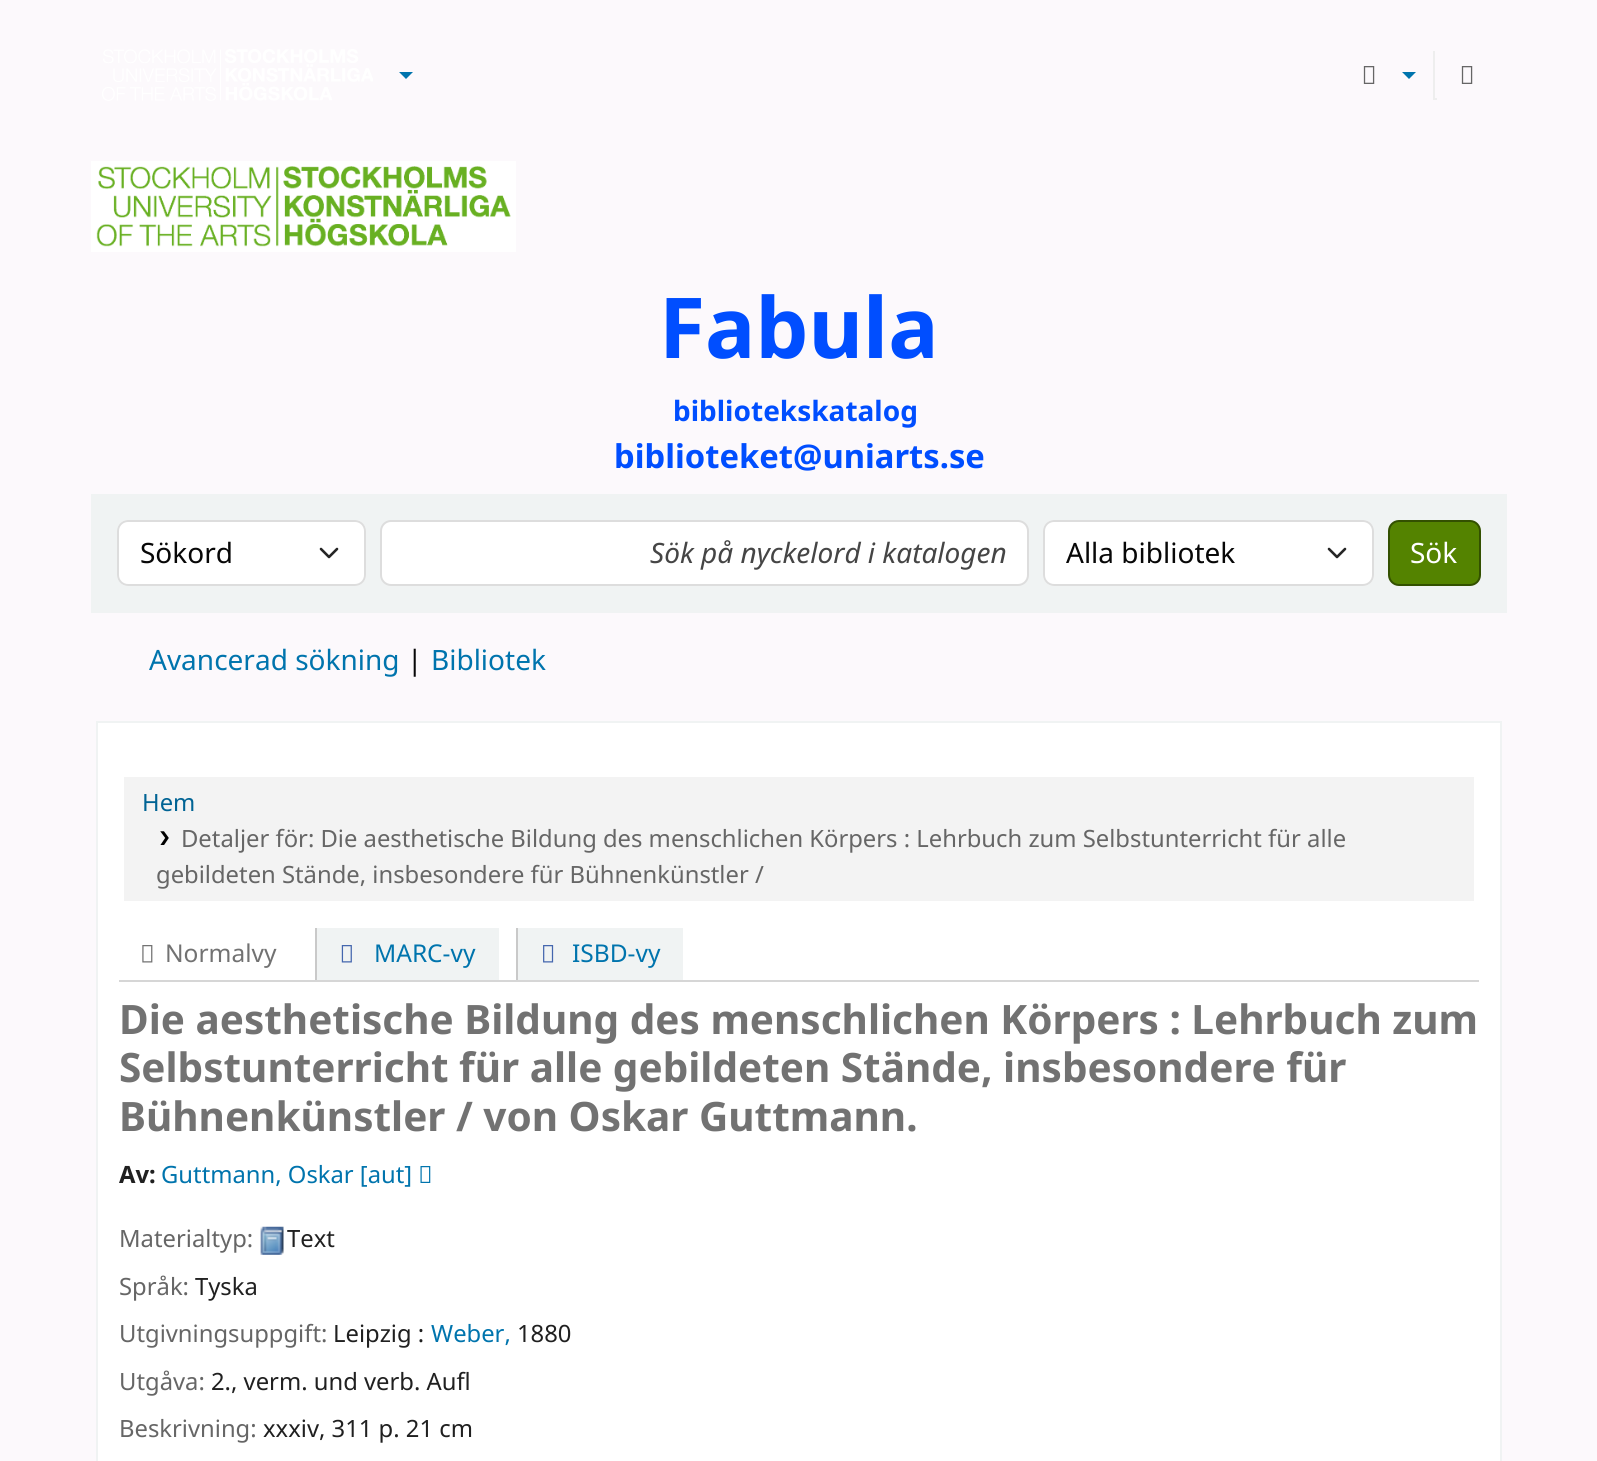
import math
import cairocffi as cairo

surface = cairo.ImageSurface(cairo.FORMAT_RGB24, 1597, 1461)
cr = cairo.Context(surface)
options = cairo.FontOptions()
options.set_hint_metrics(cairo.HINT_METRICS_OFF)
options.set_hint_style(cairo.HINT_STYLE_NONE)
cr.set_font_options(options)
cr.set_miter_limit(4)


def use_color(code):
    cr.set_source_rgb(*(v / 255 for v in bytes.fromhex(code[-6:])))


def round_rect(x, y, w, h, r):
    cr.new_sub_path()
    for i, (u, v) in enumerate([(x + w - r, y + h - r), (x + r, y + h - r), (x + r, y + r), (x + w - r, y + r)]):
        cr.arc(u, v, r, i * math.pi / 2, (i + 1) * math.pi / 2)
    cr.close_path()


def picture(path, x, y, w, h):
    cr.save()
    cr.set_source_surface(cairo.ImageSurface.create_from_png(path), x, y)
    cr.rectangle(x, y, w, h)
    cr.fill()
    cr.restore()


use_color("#fcf9fc")
cr.paint()
picture("img1.png", 102, 49, 271, 52)
use_color("#0074ad")
cr.new_path()
cr.move_to(399, 72)
cr.line_to(413, 72)
cr.line_to(406, 79)
cr.close_path()
cr.fill()
picture("img2.png", 1363, 66, 12, 18)
cr.new_path()
cr.move_to(1402, 72)
cr.line_to(1416, 72)
cr.line_to(1409, 79)
cr.close_path()
cr.fill()
use_color("#eeeeee")
cr.rectangle(1433, 98, 4, 2)
cr.fill()
cr.rectangle(1433, 51, 2, 49)
cr.fill()
picture("img2.png", 1461, 66, 12, 18)
picture("img3.png", 91, 161, 425, 91)
cr.select_font_face("Noto Sans", cairo.FONT_SLANT_NORMAL, cairo.FONT_WEIGHT_BOLD)
cr.set_font_size(84)
use_color("#004eff")
cr.move_to(659, 358)
cr.show_text("Fabula")
cr.set_font_size(28)
cr.move_to(673, 421)
cr.show_text("bibliotekskatalog")
cr.set_font_size(32.75)
cr.move_to(614, 468)
cr.show_text("biblioteket@uniarts.se")
use_color("#f0f3f3")
cr.rectangle(91, 494, 1416, 119)
cr.fill()
use_color("#ffffff")
round_rect(117, 520, 249, 66, 11)
cr.fill()
cr.new_path()
cr.move_to(321, 549)
cr.line_to(329, 557)
cr.line_to(337, 549)
use_color("#252525")
cr.set_line_width(2.6)
cr.set_line_cap(cairo.LINE_CAP_ROUND)
cr.set_line_join(cairo.LINE_JOIN_ROUND)
cr.stroke()
round_rect(118, 521, 247, 64, 10)
use_color("#dddddd")
cr.set_line_width(2)
cr.set_line_cap(cairo.LINE_CAP_BUTT)
cr.set_line_join(cairo.LINE_JOIN_MITER)
cr.stroke()
cr.select_font_face("Noto Sans")
cr.set_font_size(28)
use_color("#070707")
cr.move_to(140, 563)
cr.show_text("Sökord")
use_color("#ffffff")
round_rect(381, 521, 647, 64, 10)
cr.fill_preserve()
use_color("#dddddd")
cr.stroke()
cr.select_font_face("Noto Sans", cairo.FONT_SLANT_ITALIC)
use_color("#454545")
cr.move_to(650, 563)
cr.show_text("Sök på nyckelord i katalogen")
use_color("#ffffff")
round_rect(1043, 520, 331, 66, 11)
cr.fill()
cr.new_path()
cr.move_to(1329, 549)
cr.line_to(1337, 557)
cr.line_to(1345, 549)
use_color("#252525")
cr.set_line_width(2.6)
cr.set_line_cap(cairo.LINE_CAP_ROUND)
cr.set_line_join(cairo.LINE_JOIN_ROUND)
cr.stroke()
round_rect(1044, 521, 329, 64, 10)
use_color("#dddddd")
cr.set_line_width(2)
cr.set_line_cap(cairo.LINE_CAP_BUTT)
cr.set_line_join(cairo.LINE_JOIN_MITER)
cr.stroke()
cr.select_font_face("Noto Sans")
use_color("#070707")
cr.move_to(1066, 563)
cr.show_text("Alla bibliotek")
use_color("#548300")
round_rect(1389, 521, 91, 64, 10)
cr.fill_preserve()
use_color("#335000")
cr.stroke()
use_color("#ffffff")
cr.move_to(1410, 563)
cr.show_text("Sök")
use_color("#0074ad")
cr.move_to(149, 670)
cr.show_text("Avancerad sökning")
use_color("#070707")
cr.move_to(407, 670)
cr.show_text("|")
use_color("#0074ad")
cr.move_to(431, 670)
cr.show_text("Bibliotek")
use_color("#ffffff")
cr.rectangle(97, 722, 1404, 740)
cr.fill_preserve()
use_color("#f0f3f3")
cr.stroke()
use_color("#f3f3f3")
cr.rectangle(124, 777, 1350, 124)
cr.fill()
cr.set_font_size(23.8)
use_color("#006394")
cr.move_to(142, 811)
cr.show_text("Hem")
picture("img4.png", 160, 831, 9, 14)
use_color("#666666")
cr.move_to(181, 847)
cr.show_text("Detaljer för: Die aesthetische Bildung des menschlichen Körpers : Lehrbuch zum Selbstunterricht für alle")
cr.move_to(156, 883)
cr.show_text("gebildeten Stände, insbesondere für Bühnenkünstler /")
use_color("#d6d6d6")
cr.rectangle(119, 980, 1360, 2)
cr.fill()
picture("img5.png", 142, 945, 11, 18)
cr.set_font_size(24.5)
use_color("#727272")
cr.move_to(165, 962)
cr.show_text("Normalvy")
use_color("#f0f3f3")
cr.rectangle(317, 928, 182, 52)
cr.fill()
use_color("#c9c9c9")
cr.rectangle(315, 928, 2, 52)
cr.fill()
picture("img6.png", 341, 945, 11, 18)
use_color("#0074ad")
cr.move_to(374, 962)
cr.show_text("MARC-vy")
use_color("#f0f3f3")
cr.rectangle(518, 928, 165, 52)
cr.fill()
use_color("#c9c9c9")
cr.rectangle(516, 928, 2, 52)
cr.fill()
picture("img7.png", 543, 945, 11, 18)
use_color("#0074ad")
cr.move_to(572, 962)
cr.show_text("ISBD-vy")
cr.select_font_face("Noto Sans", cairo.FONT_SLANT_NORMAL, cairo.FONT_WEIGHT_BOLD)
cr.set_font_size(40.5)
use_color("#727272")
cr.move_to(119, 1034)
cr.show_text("Die aesthetische Bildung des menschlichen Körpers : Lehrbuch zum")
cr.move_to(119, 1082)
cr.show_text("Selbstunterricht für alle gebildeten Stände, insbesondere für")
cr.move_to(119, 1131)
cr.show_text("Bühnenkünstler / von Oskar Guttmann.")
cr.set_font_size(23.8)
use_color("#202020")
cr.move_to(119, 1183)
cr.show_text("Av:")
cr.select_font_face("Noto Sans")
use_color("#0074ad")
cr.move_to(161, 1183)
cr.show_text("Guttmann, Oskar [aut]")
picture("img8.png", 420, 1166, 11, 17)
use_color("#666666")
cr.move_to(119, 1247)
cr.show_text("Materialtyp:")
picture("img9.png", 260, 1226, 24, 29)
use_color("#202020")
cr.move_to(287, 1247)
cr.show_text("Text")
use_color("#666666")
cr.move_to(119, 1295)
cr.show_text("Språk:")
use_color("#202020")
cr.move_to(195, 1295)
cr.show_text("Tyska")
use_color("#666666")
cr.move_to(119, 1342)
cr.show_text("Utgivningsuppgift:")
use_color("#202020")
cr.move_to(333, 1342)
cr.show_text("Leipzig :")
use_color("#0074ad")
cr.move_to(431, 1342)
cr.show_text("Weber,")
use_color("#202020")
cr.move_to(517, 1342)
cr.show_text("1880")
use_color("#666666")
cr.move_to(119, 1390)
cr.show_text("Utgåva:")
use_color("#202020")
cr.move_to(211, 1390)
cr.show_text("2., verm. und verb. Aufl")
use_color("#666666")
cr.move_to(119, 1437)
cr.show_text("Beskrivning:")
use_color("#202020")
cr.move_to(263, 1437)
cr.show_text("xxxiv, 311 p. 21 cm")
surface.write_to_png("result.png")
